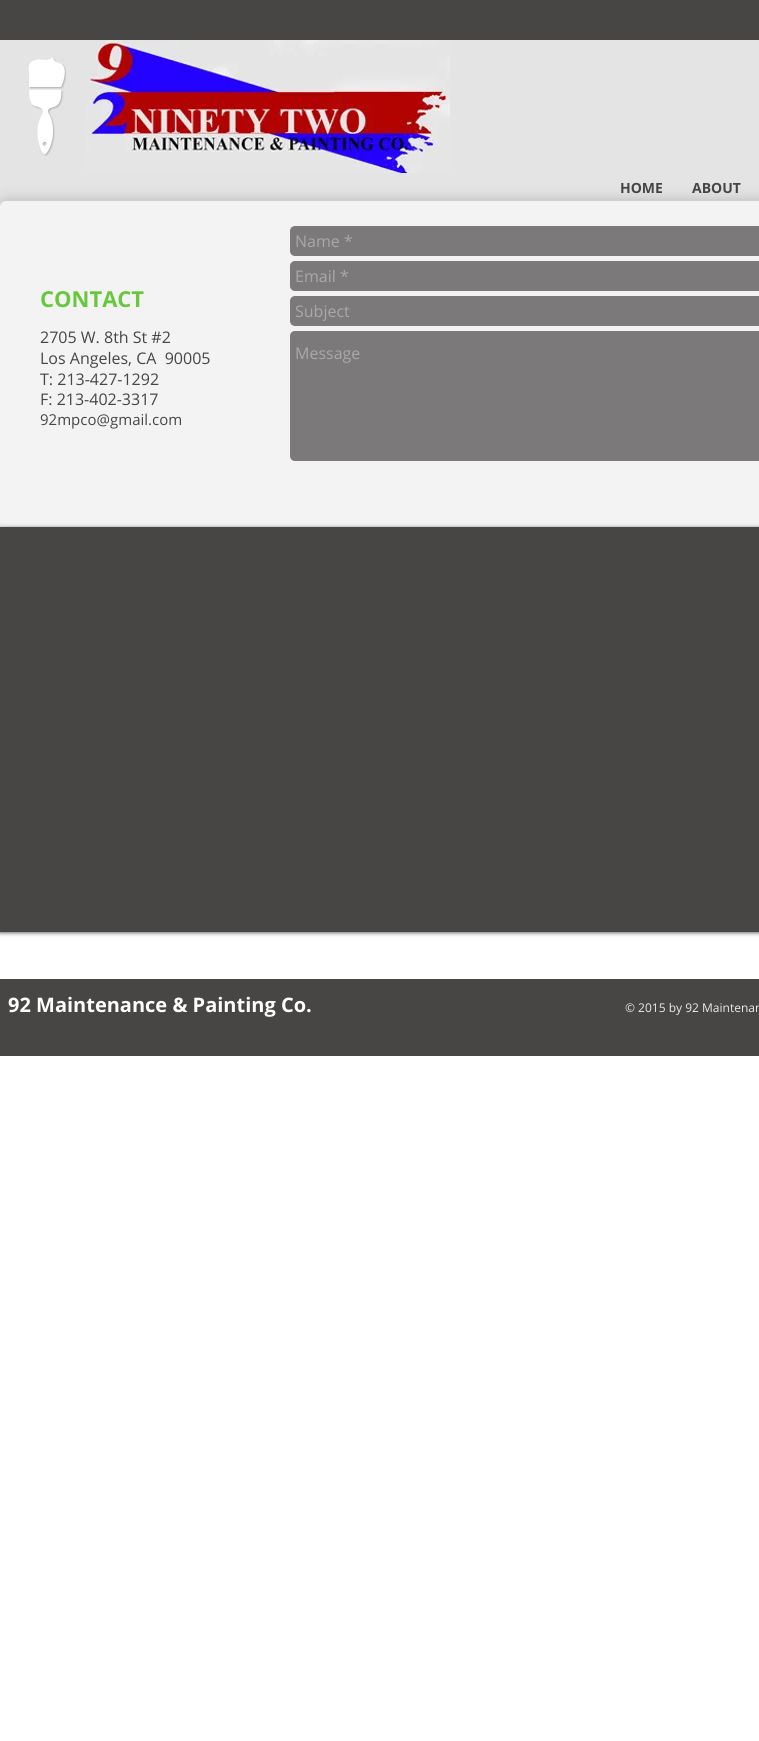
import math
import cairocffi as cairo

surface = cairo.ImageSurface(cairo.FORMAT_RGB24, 759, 1741)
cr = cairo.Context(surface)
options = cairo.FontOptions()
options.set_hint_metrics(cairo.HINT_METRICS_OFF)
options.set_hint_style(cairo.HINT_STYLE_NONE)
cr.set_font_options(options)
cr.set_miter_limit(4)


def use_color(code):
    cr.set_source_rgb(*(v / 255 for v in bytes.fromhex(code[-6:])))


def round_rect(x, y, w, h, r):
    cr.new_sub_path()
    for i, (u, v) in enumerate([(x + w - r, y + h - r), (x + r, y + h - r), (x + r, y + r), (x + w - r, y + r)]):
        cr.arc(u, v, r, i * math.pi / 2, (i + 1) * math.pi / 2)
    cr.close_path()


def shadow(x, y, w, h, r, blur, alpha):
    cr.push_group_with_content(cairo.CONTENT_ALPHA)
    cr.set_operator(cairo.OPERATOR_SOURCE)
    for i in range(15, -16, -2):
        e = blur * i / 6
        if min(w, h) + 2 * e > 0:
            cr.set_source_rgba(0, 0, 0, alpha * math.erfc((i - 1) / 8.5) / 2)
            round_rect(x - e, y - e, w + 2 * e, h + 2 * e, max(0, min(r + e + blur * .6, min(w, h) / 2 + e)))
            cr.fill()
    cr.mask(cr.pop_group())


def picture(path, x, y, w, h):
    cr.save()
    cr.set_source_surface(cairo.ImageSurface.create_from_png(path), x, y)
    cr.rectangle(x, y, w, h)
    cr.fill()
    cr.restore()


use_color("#ffffff")
cr.paint()
use_color("#e4e4e4")
cr.rectangle(0, 40, 759, 167)
cr.fill()
use_color("#484545")
cr.rectangle(0, 0, 759, 40)
cr.fill()
picture("img1.png", 28, 57, 38, 99)
picture("img2.png", 86, 40, 364, 133)
cr.select_font_face("Open Sans", cairo.FONT_SLANT_NORMAL, cairo.FONT_WEIGHT_BOLD)
cr.set_font_size(14)
cr.move_to(620, 193)
cr.show_text("HOME")
cr.move_to(692, 193)
cr.show_text("ABOUT")
use_color("#000000")
shadow(0, 200, 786, 325, 6, 7, 0.18)
use_color("#f3f3f3")
round_rect(0, 201, 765, 325, 6)
cr.fill()
cr.set_font_size(22)
use_color("#67c83d")
cr.move_to(40, 307)
cr.show_text("CONTACT")
use_color("#7b7979")
round_rect(290, 226, 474, 30, 5)
cr.fill()
cr.select_font_face("Open Sans")
cr.set_font_size(16)
use_color("#a9a9a9")
cr.move_to(295, 247)
cr.show_text("Name *")
use_color("#7b7979")
round_rect(290, 261, 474, 30, 5)
cr.fill()
use_color("#a9a9a9")
cr.move_to(295, 282)
cr.show_text("Email *")
use_color("#7b7979")
round_rect(290, 296, 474, 30, 5)
cr.fill()
use_color("#a9a9a9")
cr.move_to(295, 317)
cr.show_text("Subject")
use_color("#7b7979")
round_rect(290, 331, 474, 130, 5)
cr.fill()
use_color("#a9a9a9")
cr.move_to(295, 359)
cr.show_text("Message")
use_color("#484545")
cr.move_to(40, 343)
cr.show_text("2705 W. 8th St #2")
cr.move_to(40, 364)
cr.show_text("Los Angeles, CA  90005")
cr.move_to(40, 385)
cr.show_text("T: 213-427-1292")
cr.move_to(40, 405)
cr.show_text("F: 213-402-3317")
cr.set_font_size(15)
cr.move_to(40, 425)
cr.show_text("92mpco@gmail.com")
use_color("#000000")
shadow(0, 528, 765, 405, 0, 2, 0.6)
use_color("#484545")
cr.rectangle(0, 527, 759, 405)
cr.fill()
cr.rectangle(0, 979, 759, 77)
cr.fill()
cr.select_font_face("Open Sans", cairo.FONT_SLANT_NORMAL, cairo.FONT_WEIGHT_BOLD)
cr.set_font_size(20)
use_color("#ffffff")
cr.move_to(8, 1012)
cr.show_text("92 Maintenance & Painting Co.")
cr.select_font_face("Open Sans")
cr.set_font_size(12)
use_color("#ebebeb")
cr.move_to(625, 1012)
cr.show_text("© 2015 by 92 Maintenan")
surface.write_to_png("result.png")
